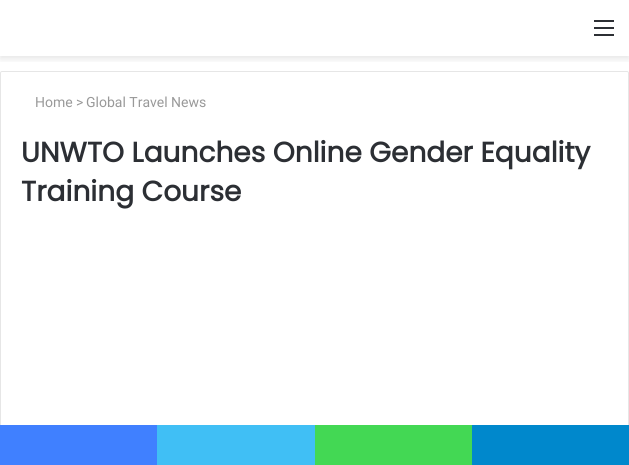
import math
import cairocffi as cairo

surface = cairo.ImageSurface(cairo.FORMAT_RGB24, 629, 465)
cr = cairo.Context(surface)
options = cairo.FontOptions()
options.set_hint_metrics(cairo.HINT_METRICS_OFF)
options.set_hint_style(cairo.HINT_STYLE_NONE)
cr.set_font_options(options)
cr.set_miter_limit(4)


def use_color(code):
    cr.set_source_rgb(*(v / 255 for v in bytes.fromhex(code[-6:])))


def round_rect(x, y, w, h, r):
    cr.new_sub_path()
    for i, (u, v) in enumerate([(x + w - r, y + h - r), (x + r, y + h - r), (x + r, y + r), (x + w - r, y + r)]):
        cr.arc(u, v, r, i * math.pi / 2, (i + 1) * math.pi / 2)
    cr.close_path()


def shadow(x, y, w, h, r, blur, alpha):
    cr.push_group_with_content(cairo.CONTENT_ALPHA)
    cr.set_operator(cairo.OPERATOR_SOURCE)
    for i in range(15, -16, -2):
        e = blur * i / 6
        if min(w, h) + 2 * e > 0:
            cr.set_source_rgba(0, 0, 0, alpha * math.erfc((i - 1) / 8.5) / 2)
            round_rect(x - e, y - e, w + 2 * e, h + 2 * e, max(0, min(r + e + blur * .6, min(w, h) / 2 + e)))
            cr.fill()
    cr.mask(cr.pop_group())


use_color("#ffffff")
cr.paint()
cr.save()
cr.rectangle(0, 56, 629, 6)
cr.clip()
use_color("#000000")
shadow(0, 3, 629, 56, 0, 3.5, 0.1)
cr.restore()
use_color("#2c2f34")
cr.rectangle(594, 27, 20, 2)
cr.fill()
cr.rectangle(594, 20, 20, 2)
cr.fill()
cr.rectangle(594, 34, 20, 2)
cr.fill()
round_rect(0.5, 71.5, 628, 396, 1.5)
use_color("#e6e6e6")
cr.set_line_width(1)
cr.stroke()
cr.select_font_face("Roboto")
cr.set_font_size(14)
use_color("#999999")
cr.move_to(35, 107)
cr.show_text("Home")
cr.move_to(76, 107)
cr.show_text(">")
cr.move_to(86, 107)
cr.show_text("Global Travel News")
cr.select_font_face("Poppins", cairo.FONT_SLANT_NORMAL, cairo.FONT_WEIGHT_BOLD)
cr.set_font_size(28)
use_color("#2c2f34")
cr.move_to(21, 162)
cr.show_text("UNWTO Launches Online Gender Equality")
cr.move_to(21, 201)
cr.show_text("Training Course")
use_color("#4080ff")
cr.rectangle(0, 425, 157, 40)
cr.fill()
use_color("#40bff5")
cr.rectangle(157, 425, 158, 40)
cr.fill()
use_color("#43d854")
cr.rectangle(315, 425, 157, 40)
cr.fill()
use_color("#0088cc")
cr.rectangle(472, 425, 157, 40)
cr.fill()
surface.write_to_png("result.png")
